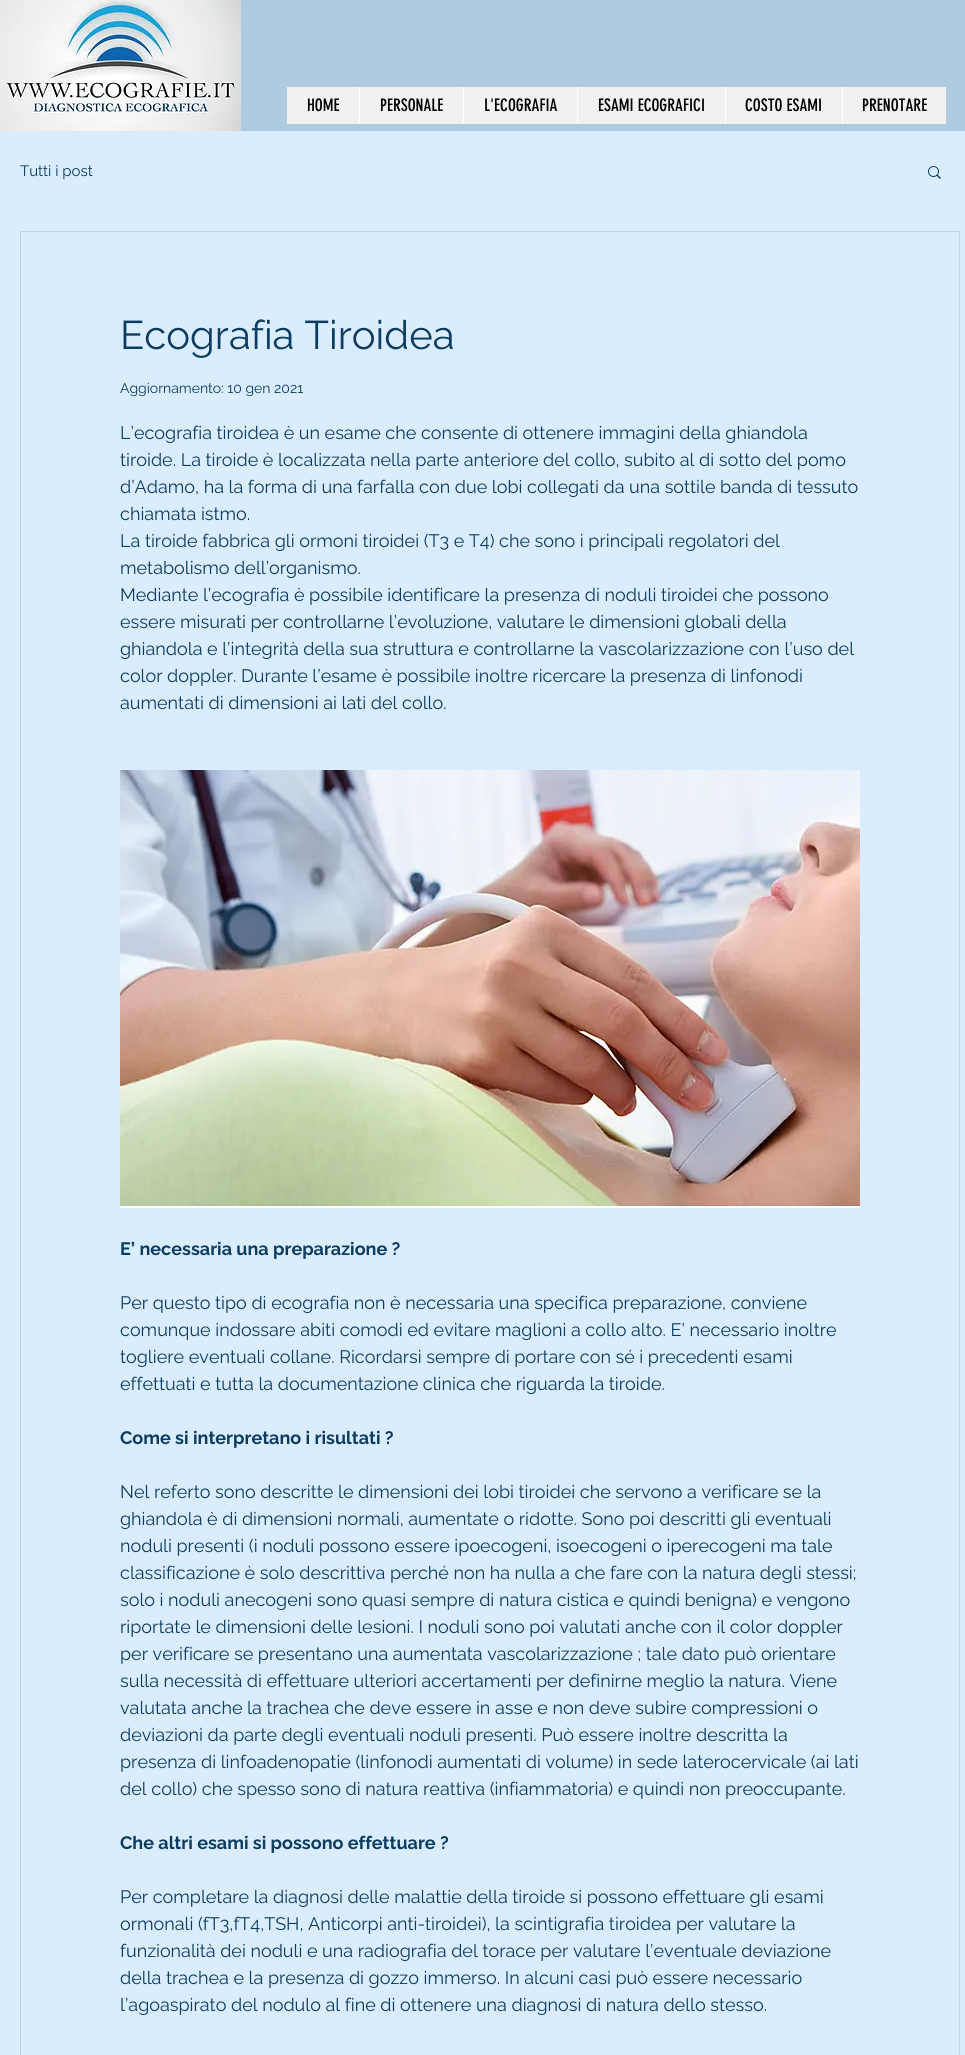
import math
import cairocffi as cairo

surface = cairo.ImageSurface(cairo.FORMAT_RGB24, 965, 2055)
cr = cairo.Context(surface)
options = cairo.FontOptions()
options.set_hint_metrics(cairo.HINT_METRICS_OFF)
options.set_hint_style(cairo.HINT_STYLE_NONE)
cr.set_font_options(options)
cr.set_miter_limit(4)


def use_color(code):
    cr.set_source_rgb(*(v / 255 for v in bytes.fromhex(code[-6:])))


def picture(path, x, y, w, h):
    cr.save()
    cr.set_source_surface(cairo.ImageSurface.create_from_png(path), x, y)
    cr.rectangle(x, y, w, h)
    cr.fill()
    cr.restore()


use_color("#daedff")
cr.paint()
picture("img1.png", 0, 0, 241, 131)
use_color("#afcbe0")
cr.rectangle(241, 0, 724, 131)
cr.fill()
use_color("#f1f1f1")
cr.rectangle(287, 87, 659, 37)
cr.fill()
cr.select_font_face("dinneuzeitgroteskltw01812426")
cr.set_font_size(17)
use_color("#000000")
cr.move_to(307, 111)
cr.show_text("HOME")
use_color("#ffffff")
cr.rectangle(359, 87, 1, 37)
cr.fill()
use_color("#000000")
cr.move_to(380, 111)
cr.show_text("PERSONALE")
use_color("#ffffff")
cr.rectangle(463, 87, 1, 37)
cr.fill()
use_color("#000000")
cr.move_to(484, 111)
cr.show_text("L'ECOGRAFIA")
use_color("#ffffff")
cr.rectangle(577, 87, 1, 37)
cr.fill()
use_color("#000000")
cr.move_to(598, 111)
cr.show_text("ESAMI ECOGRAFICI")
use_color("#ffffff")
cr.rectangle(725, 87, 1, 37)
cr.fill()
use_color("#000000")
cr.move_to(745, 111)
cr.show_text("COSTO ESAMI")
use_color("#ffffff")
cr.rectangle(842, 87, 1, 37)
cr.fill()
use_color("#000000")
cr.move_to(862, 111)
cr.show_text("PRENOTARE")
cr.select_font_face("Raleway")
cr.set_font_size(15)
use_color("#0c3c60")
cr.move_to(20, 176)
cr.show_text("Tutti i post")
picture("img2.png", 928, 166, 13, 13)
cr.rectangle(20.5, 231.5, 939, 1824)
use_color("#bad4e8")
cr.set_line_width(1)
cr.stroke()
cr.set_font_size(40)
use_color("#0c3c60")
cr.move_to(120, 349)
cr.show_text("Ecografia Tiroidea")
cr.set_font_size(14)
cr.move_to(120, 393)
cr.show_text("Aggiornamento: 10 gen 2021")
cr.set_font_size(18)
cr.move_to(120, 439)
cr.show_text("L’ecografia tiroidea è un esame che consente di ottenere immagini della ghiandola")
cr.move_to(120, 466)
cr.show_text("tiroide. La tiroide è localizzata nella parte anteriore del collo, subito al di sotto del pomo")
cr.move_to(120, 493)
cr.show_text("d’Adamo, ha la forma di una farfalla con due lobi collegati da una sottile banda di tessuto")
cr.move_to(120, 520)
cr.show_text("chiamata istmo.")
cr.move_to(120, 547)
cr.show_text("La tiroide fabbrica gli ormoni tiroidei (T3 e T4) che sono i principali regolatori del")
cr.move_to(120, 574)
cr.show_text("metabolismo dell’organismo.")
cr.move_to(120, 601)
cr.show_text("Mediante l’ecografia è possibile identificare la presenza di noduli tiroidei che possono")
cr.move_to(120, 628)
cr.show_text("essere misurati per controllarne l’evoluzione, valutare le dimensioni globali della")
cr.move_to(120, 655)
cr.show_text("ghiandola e l’integrità della sua struttura e controllarne la vascolarizzazione con l’uso del")
cr.move_to(120, 682)
cr.show_text("color doppler. Durante l’esame è possibile inoltre ricercare la presenza di linfonodi")
cr.move_to(120, 709)
cr.show_text("aumentati di dimensioni ai lati del collo.")
picture("img3.png", 120, 770, 740, 438)
cr.select_font_face("Raleway", cairo.FONT_SLANT_NORMAL, cairo.FONT_WEIGHT_BOLD)
cr.move_to(120, 1255)
cr.show_text("E’ necessaria una preparazione ?")
cr.select_font_face("Raleway")
cr.move_to(120, 1309)
cr.show_text("Per questo tipo di ecografia non è necessaria una specifica preparazione, conviene")
cr.move_to(120, 1336)
cr.show_text("comunque indossare abiti comodi ed evitare maglioni a collo alto. E’ necessario inoltre")
cr.move_to(120, 1363)
cr.show_text("togliere eventuali collane. Ricordarsi sempre di portare con sé i precedenti esami")
cr.move_to(120, 1390)
cr.show_text("effettuati e tutta la documentazione clinica che riguarda la tiroide.")
cr.select_font_face("Raleway", cairo.FONT_SLANT_NORMAL, cairo.FONT_WEIGHT_BOLD)
cr.move_to(120, 1444)
cr.show_text("Come si interpretano i risultati ?")
cr.select_font_face("Raleway")
cr.move_to(120, 1498)
cr.show_text("Nel referto sono descritte le dimensioni dei lobi tiroidei che servono a verificare se la")
cr.move_to(120, 1525)
cr.show_text("ghiandola è di dimensioni normali, aumentate o ridotte. Sono poi descritti gli eventuali")
cr.move_to(120, 1552)
cr.show_text("noduli presenti (i noduli possono essere ipoecogeni, isoecogeni o iperecogeni ma tale")
cr.move_to(120, 1579)
cr.show_text("classificazione è solo descrittiva perché non ha nulla a che fare con la natura degli stessi;")
cr.move_to(120, 1606)
cr.show_text("solo i noduli anecogeni sono quasi sempre di natura cistica e quindi benigna) e vengono")
cr.move_to(120, 1633)
cr.show_text("riportate le dimensioni delle lesioni. I noduli sono poi valutati anche con il color doppler")
cr.move_to(120, 1660)
cr.show_text("per verificare se presentano una aumentata vascolarizzazione ; tale dato può orientare")
cr.move_to(120, 1687)
cr.show_text("sulla necessità di effettuare ulteriori accertamenti per definirne meglio la natura. Viene")
cr.move_to(120, 1714)
cr.show_text("valutata anche la trachea che deve essere in asse e non deve subire compressioni o")
cr.move_to(120, 1741)
cr.show_text("deviazioni da parte degli eventuali noduli presenti. Può essere inoltre descritta la")
cr.move_to(120, 1768)
cr.show_text("presenza di linfoadenopatie (linfonodi aumentati di volume) in sede laterocervicale (ai lati")
cr.move_to(120, 1795)
cr.show_text("del collo) che spesso sono di natura reattiva (infiammatoria) e quindi non preoccupante.")
cr.select_font_face("Raleway", cairo.FONT_SLANT_NORMAL, cairo.FONT_WEIGHT_BOLD)
cr.move_to(120, 1849)
cr.show_text("Che altri esami si possono effettuare ?")
cr.select_font_face("Raleway")
cr.move_to(120, 1903)
cr.show_text("Per completare la diagnosi delle malattie della tiroide si possono effettuare gli esami")
cr.move_to(120, 1930)
cr.show_text("ormonali (fT3,fT4,TSH, Anticorpi anti-tiroidei), la scintigrafia tiroidea per valutare la")
cr.move_to(120, 1957)
cr.show_text("funzionalità dei noduli e una radiografia del torace per valutare l’eventuale deviazione")
cr.move_to(120, 1984)
cr.show_text("della trachea e la presenza di gozzo immerso. In alcuni casi può essere necessario")
cr.move_to(120, 2011)
cr.show_text("l’agoaspirato del nodulo al fine di ottenere una diagnosi di natura dello stesso.")
surface.write_to_png("result.png")
